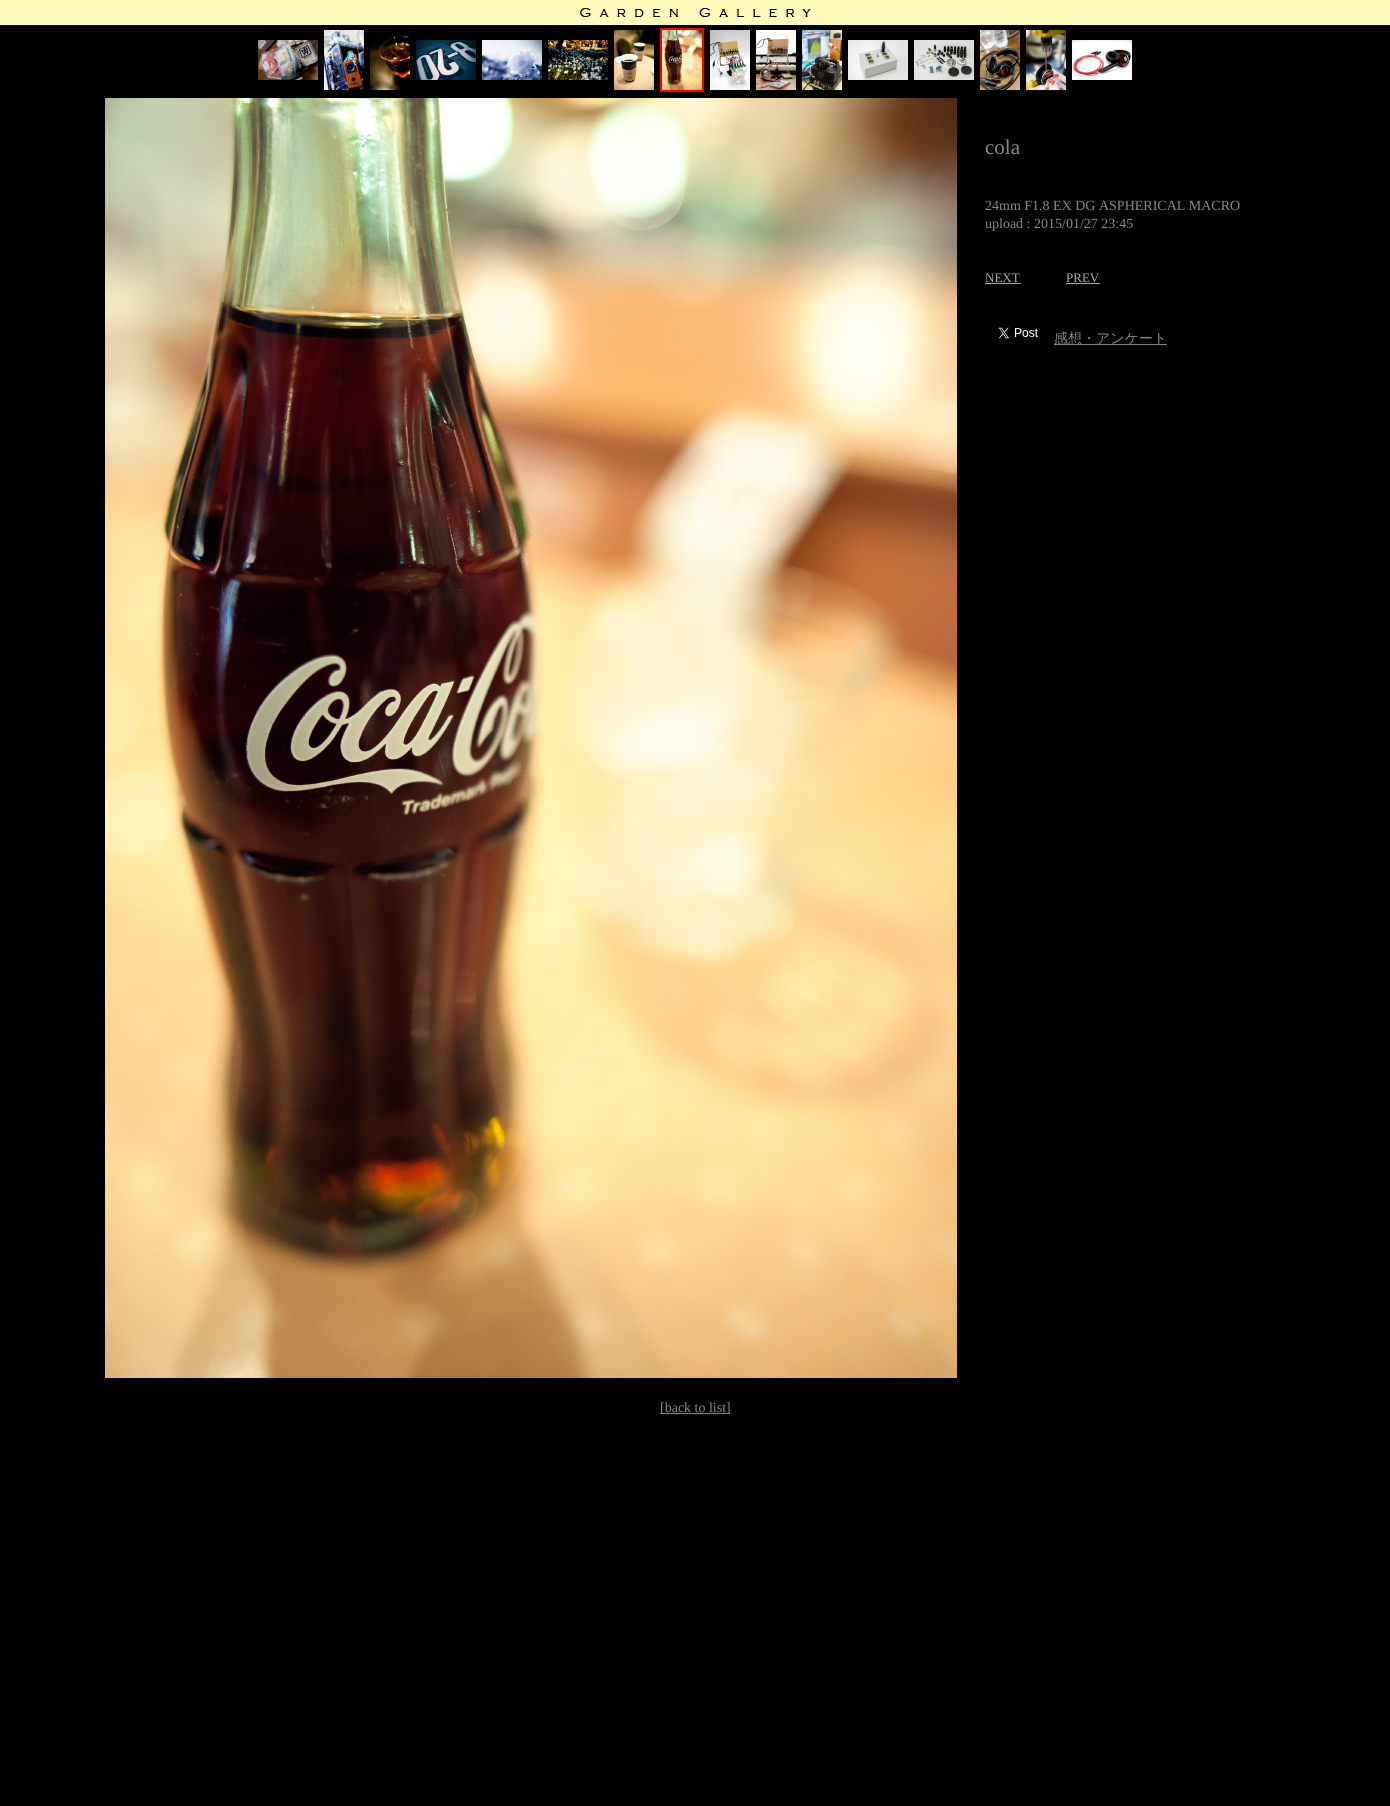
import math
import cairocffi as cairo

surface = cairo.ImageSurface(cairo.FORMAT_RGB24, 1390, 1806)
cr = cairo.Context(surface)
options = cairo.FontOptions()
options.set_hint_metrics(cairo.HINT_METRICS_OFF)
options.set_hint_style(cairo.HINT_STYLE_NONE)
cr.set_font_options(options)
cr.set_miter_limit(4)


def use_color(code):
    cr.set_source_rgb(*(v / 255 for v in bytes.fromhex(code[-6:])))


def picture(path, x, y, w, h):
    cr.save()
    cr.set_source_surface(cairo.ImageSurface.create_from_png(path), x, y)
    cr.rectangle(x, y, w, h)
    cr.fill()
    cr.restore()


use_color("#000000")
cr.paint()
use_color("#fffbbb")
cr.rectangle(0, 0, 1390, 25)
cr.fill()
picture("img1.png", 580, 8, 231, 9)
picture("img2.png", 258, 40, 60, 40)
picture("img3.png", 324, 30, 40, 60)
picture("img4.png", 370, 34, 40, 56)
picture("img5.png", 416, 40, 60, 40)
picture("img6.png", 482, 40, 60, 40)
picture("img7.png", 548, 40, 60, 40)
picture("img8.png", 614, 30, 40, 60)
cr.rectangle(661, 29, 42, 62)
use_color("#ff0000")
cr.stroke()
picture("img9.png", 662, 30, 40, 60)
picture("img10.png", 710, 30, 40, 60)
picture("img11.png", 756, 30, 40, 60)
picture("img12.png", 802, 30, 40, 60)
picture("img13.png", 848, 40, 60, 40)
picture("img14.png", 914, 40, 60, 40)
picture("img15.png", 980, 30, 40, 60)
picture("img16.png", 1026, 30, 40, 60)
picture("img17.png", 1072, 40, 60, 40)
picture("img18.png", 105, 98, 852, 1280)
cr.select_font_face("Liberation Serif")
cr.set_font_size(21)
use_color("#888888")
cr.move_to(985, 154)
cr.show_text("cola")
cr.set_font_size(14)
cr.move_to(985, 210)
cr.show_text("24mm F1.8 EX DG ASPHERICAL MACRO")
cr.move_to(985, 228)
cr.show_text("upload : 2015/01/27 23:45")
cr.set_font_size(13)
use_color("#aaaaaa")
cr.move_to(985, 282)
cr.show_text("NEXT")
cr.rectangle(985, 283, 36, 1)
cr.fill()
cr.move_to(1066, 282)
cr.show_text("PREV")
cr.rectangle(1066, 283, 34, 1)
cr.fill()
picture("img19.png", 998, 327, 40, 12)
use_color("#888888")
cr.rectangle(1054, 344, 113, 1)
cr.fill()
cr.select_font_face("WenQuanYi Zen Hei Medium")
cr.set_font_size(14)
cr.move_to(1054, 343)
cr.show_text("感想・アンケート")
cr.rectangle(660, 1413, 70, 1)
cr.fill()
cr.select_font_face("Liberation Serif")
cr.move_to(660, 1412)
cr.show_text("[back to list]")
surface.write_to_png("result.png")
